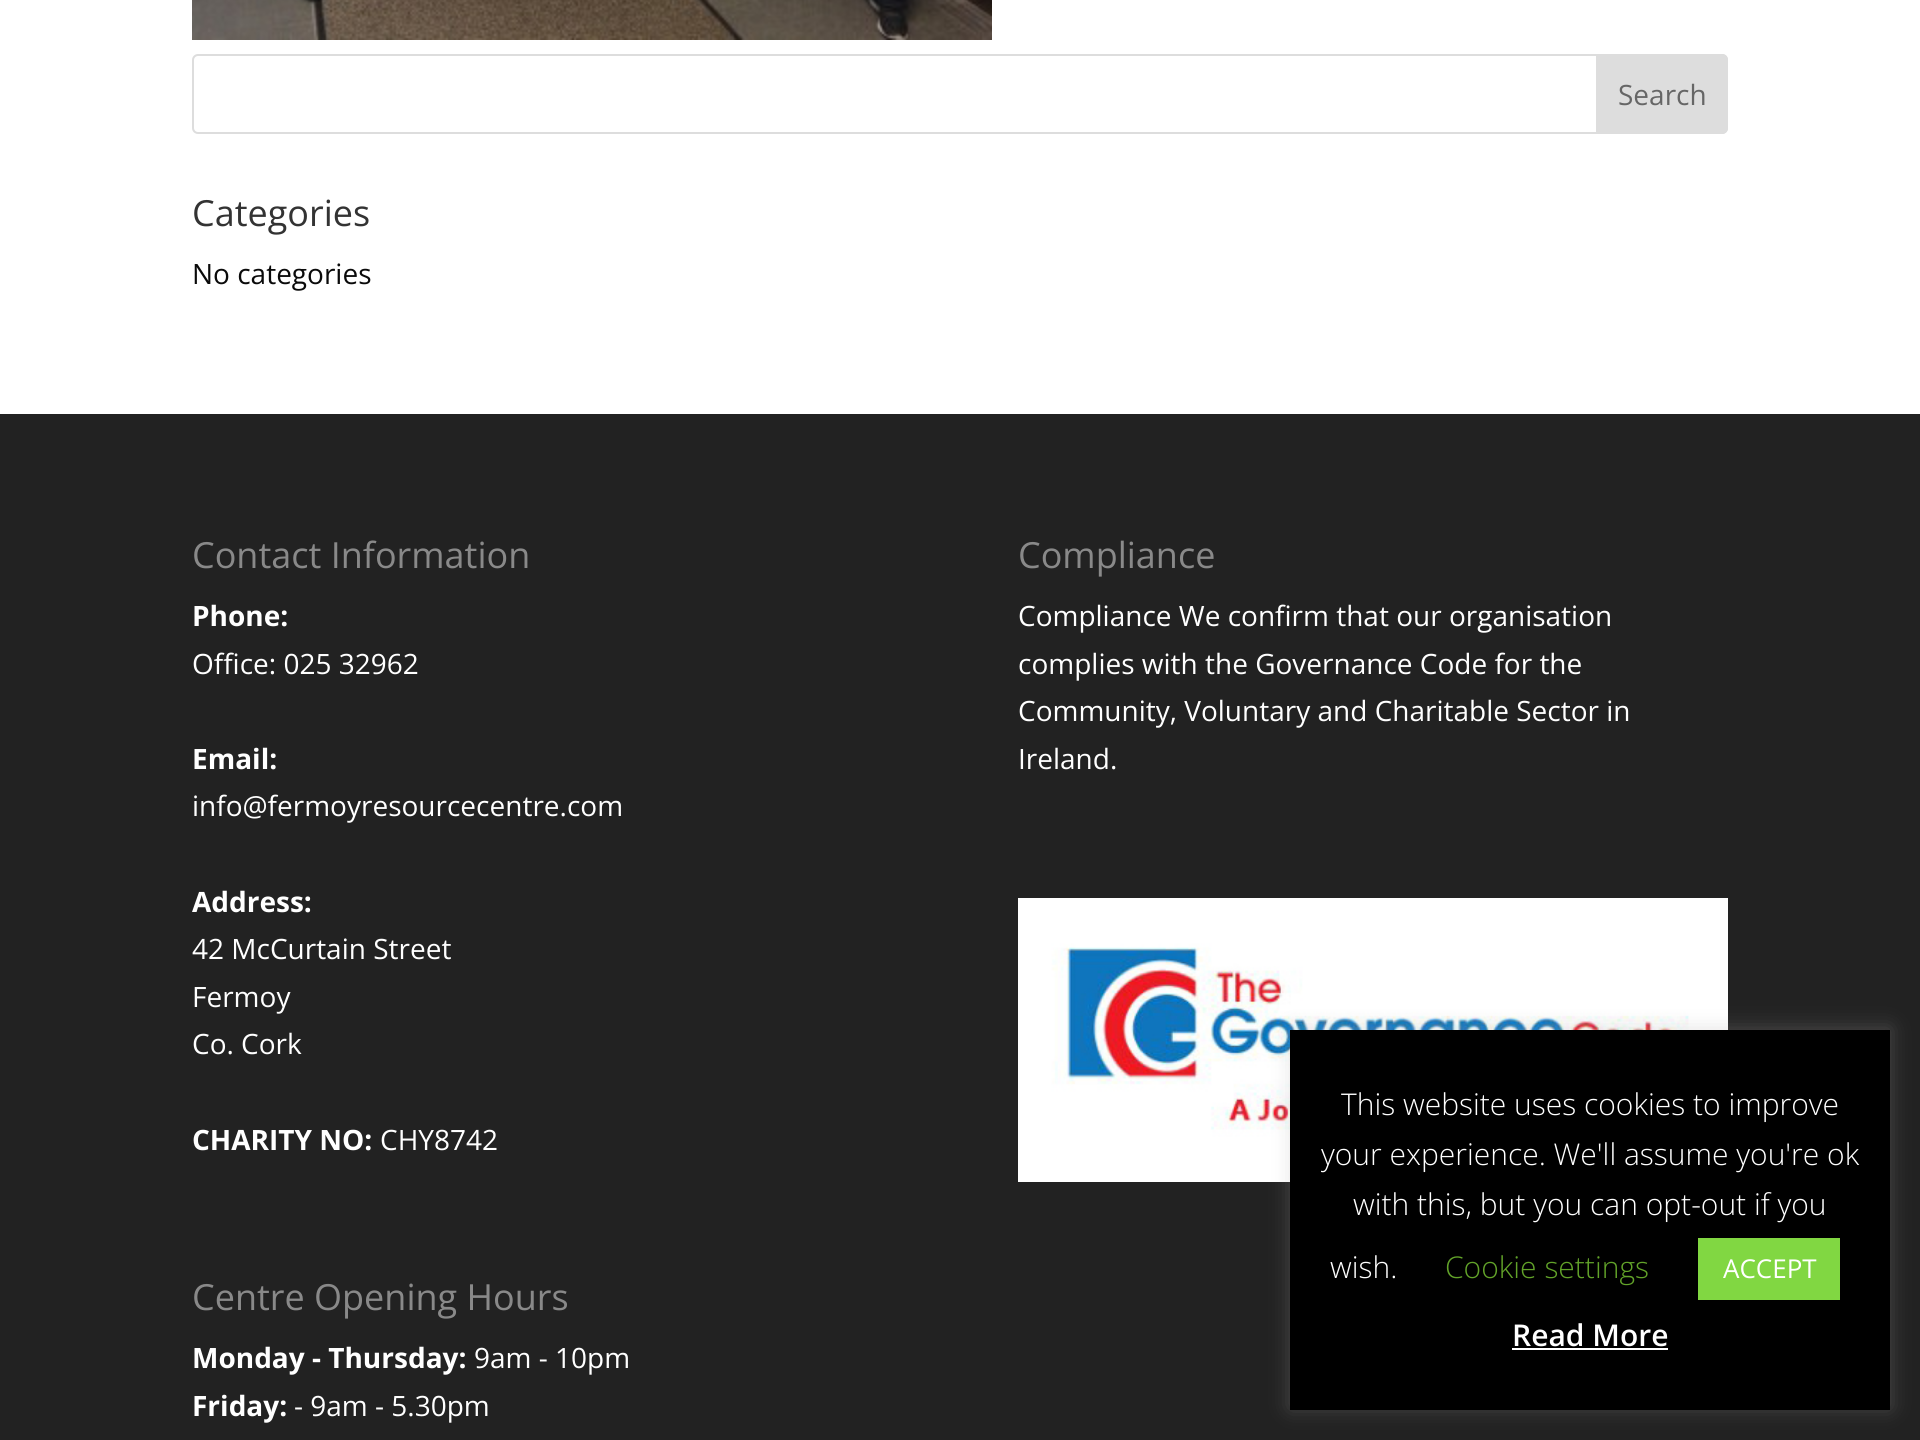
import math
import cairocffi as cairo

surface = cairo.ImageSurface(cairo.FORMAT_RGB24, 1920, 1440)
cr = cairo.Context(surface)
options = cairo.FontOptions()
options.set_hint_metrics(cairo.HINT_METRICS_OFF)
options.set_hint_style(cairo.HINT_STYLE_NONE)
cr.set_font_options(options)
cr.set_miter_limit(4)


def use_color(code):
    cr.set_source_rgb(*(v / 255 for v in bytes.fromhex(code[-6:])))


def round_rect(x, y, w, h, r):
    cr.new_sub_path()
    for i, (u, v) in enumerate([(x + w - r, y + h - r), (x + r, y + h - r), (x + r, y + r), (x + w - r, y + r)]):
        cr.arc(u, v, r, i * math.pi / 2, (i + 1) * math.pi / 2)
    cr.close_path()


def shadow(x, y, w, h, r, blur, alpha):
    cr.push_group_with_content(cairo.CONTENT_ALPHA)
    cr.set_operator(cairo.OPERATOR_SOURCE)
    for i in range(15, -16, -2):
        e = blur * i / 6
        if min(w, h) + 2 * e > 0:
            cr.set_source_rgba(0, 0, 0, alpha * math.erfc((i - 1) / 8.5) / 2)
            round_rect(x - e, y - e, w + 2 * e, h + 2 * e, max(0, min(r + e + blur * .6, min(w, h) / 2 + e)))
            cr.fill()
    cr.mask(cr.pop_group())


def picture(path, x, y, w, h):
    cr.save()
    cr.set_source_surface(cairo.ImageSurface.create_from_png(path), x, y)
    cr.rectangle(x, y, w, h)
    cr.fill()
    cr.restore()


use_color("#ffffff")
cr.paint()
picture("img1.png", 192, 0, 800, 40)
round_rect(193, 55, 1534, 78, 5)
use_color("#dddddd")
cr.stroke()
cr.new_path()
cr.move_to(1597, 55)
cr.line_to(1722, 55)
cr.curve_to(1725, 55, 1727, 57, 1727, 60)
cr.line_to(1727, 128)
cr.curve_to(1727, 131, 1725, 133, 1722, 133)
cr.line_to(1597, 133)
cr.close_path()
cr.fill_preserve()
cr.stroke()
cr.select_font_face("Open Sans")
cr.set_font_size(28)
use_color("#666666")
cr.move_to(1618, 105)
cr.show_text("Search")
cr.set_font_size(36)
use_color("#333333")
cr.move_to(192, 226)
cr.show_text("Categories")
cr.set_font_size(28)
use_color("#0a0a0a")
cr.move_to(192, 284)
cr.show_text("No categories")
use_color("#222222")
cr.rectangle(0, 414, 1920, 1026)
cr.fill()
cr.set_font_size(36)
use_color("#898989")
cr.move_to(192, 568)
cr.show_text("Contact Information")
cr.select_font_face("Open Sans", cairo.FONT_SLANT_NORMAL, cairo.FONT_WEIGHT_BOLD)
cr.set_font_size(28)
use_color("#ffffff")
cr.move_to(192, 626)
cr.show_text("Phone:")
cr.select_font_face("Open Sans")
cr.move_to(192, 674)
cr.show_text("Office: 025 32962")
cr.select_font_face("Open Sans", cairo.FONT_SLANT_NORMAL, cairo.FONT_WEIGHT_BOLD)
cr.move_to(192, 769)
cr.show_text("Email:")
cr.select_font_face("Open Sans")
cr.move_to(192, 816)
cr.show_text("info@fermoyresourcecentre.com")
cr.select_font_face("Open Sans", cairo.FONT_SLANT_NORMAL, cairo.FONT_WEIGHT_BOLD)
cr.move_to(192, 912)
cr.show_text("Address:")
cr.select_font_face("Open Sans")
cr.move_to(192, 959)
cr.show_text("42 McCurtain Street")
cr.move_to(192, 1007)
cr.show_text("Fermoy")
cr.move_to(192, 1054)
cr.show_text("Co. Cork")
cr.select_font_face("Open Sans", cairo.FONT_SLANT_NORMAL, cairo.FONT_WEIGHT_BOLD)
cr.move_to(192, 1150)
cr.show_text("CHARITY NO:")
cr.select_font_face("Open Sans")
cr.move_to(380, 1150)
cr.show_text("CHY8742")
cr.set_font_size(36)
use_color("#898989")
cr.move_to(1018, 568)
cr.show_text("Compliance")
cr.set_font_size(28)
use_color("#ffffff")
cr.move_to(1018, 626)
cr.show_text("Compliance We confirm that our organisation")
cr.move_to(1018, 674)
cr.show_text("complies with the Governance Code for the")
cr.move_to(1018, 721)
cr.show_text("Community, Voluntary and Charitable Sector in")
cr.move_to(1018, 769)
cr.show_text("Ireland.")
picture("img2.png", 1018, 898, 710, 284)
cr.set_font_size(36)
use_color("#898989")
cr.move_to(192, 1310)
cr.show_text("Centre Opening Hours")
cr.select_font_face("Open Sans", cairo.FONT_SLANT_NORMAL, cairo.FONT_WEIGHT_BOLD)
cr.set_font_size(28)
use_color("#ffffff")
cr.move_to(192, 1368)
cr.show_text("Monday - Thursday:")
cr.select_font_face("Open Sans")
cr.move_to(474, 1368)
cr.show_text("9am - 10pm")
cr.select_font_face("Open Sans", cairo.FONT_SLANT_NORMAL, cairo.FONT_WEIGHT_BOLD)
cr.move_to(192, 1416)
cr.show_text("Friday:")
cr.select_font_face("Open Sans")
cr.move_to(294, 1416)
cr.show_text("- 9am - 5.30pm")
use_color("#acabab")
shadow(1290, 1028, 600, 380, 0, 10, 0.3)
use_color("#000000")
cr.rectangle(1290, 1030, 600, 380)
cr.fill()
cr.select_font_face("Open Sans Light")
cr.set_font_size(30)
use_color("#ffffff")
cr.move_to(1341, 1115)
cr.show_text("This website uses cookies to improve")
cr.move_to(1321, 1165)
cr.show_text("your experience. We'll assume you're ok")
cr.move_to(1353, 1215)
cr.show_text("with this, but you can opt-out if you")
cr.move_to(1330, 1278)
cr.show_text("wish.")
use_color("#62a329")
cr.move_to(1445, 1278)
cr.show_text("Cookie settings")
use_color("#81d742")
cr.rectangle(1698, 1238, 142, 62)
cr.fill()
cr.select_font_face("Open Sans")
cr.set_font_size(26)
use_color("#ffffff")
cr.move_to(1723, 1278)
cr.show_text("ACCEPT")
cr.select_font_face("Open Sans SemiBold")
cr.set_font_size(30)
cr.move_to(1512, 1346)
cr.show_text("Read More")
cr.rectangle(1512, 1348, 156, 2)
cr.fill()
surface.write_to_png("result.png")
